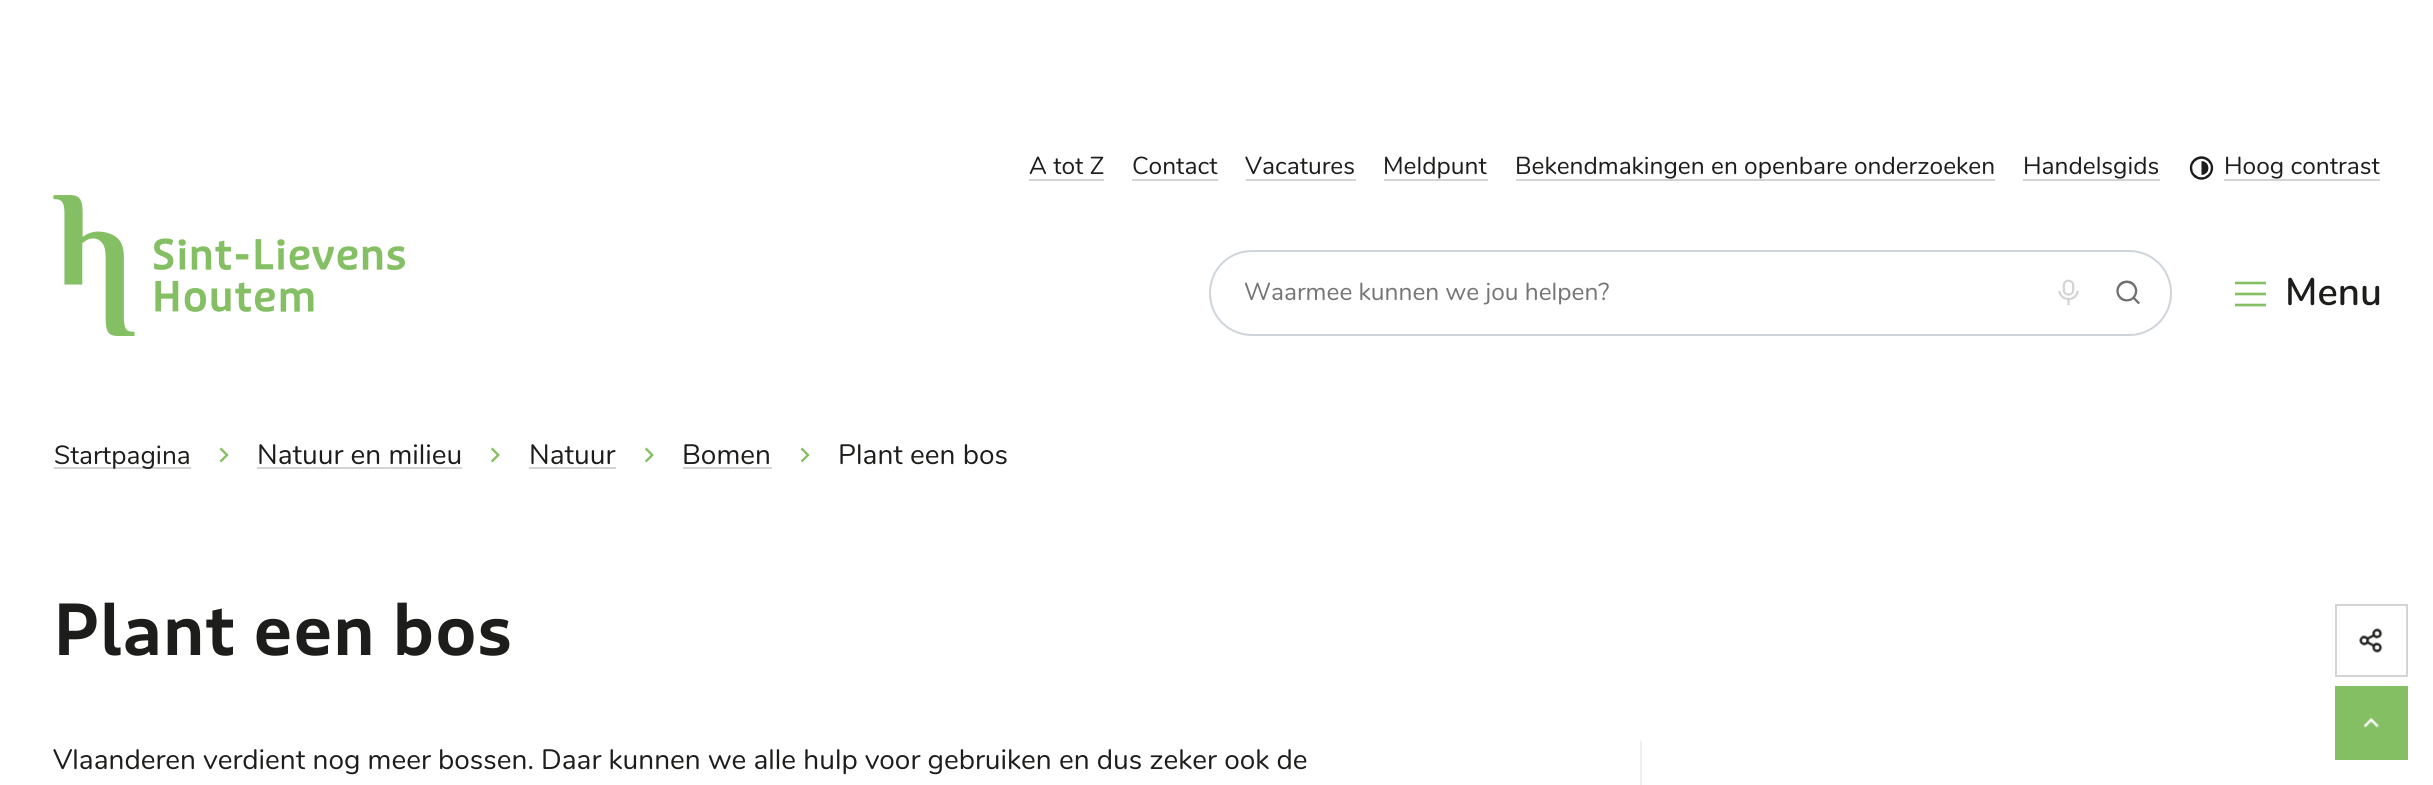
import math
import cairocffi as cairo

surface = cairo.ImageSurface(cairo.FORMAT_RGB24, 2433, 785)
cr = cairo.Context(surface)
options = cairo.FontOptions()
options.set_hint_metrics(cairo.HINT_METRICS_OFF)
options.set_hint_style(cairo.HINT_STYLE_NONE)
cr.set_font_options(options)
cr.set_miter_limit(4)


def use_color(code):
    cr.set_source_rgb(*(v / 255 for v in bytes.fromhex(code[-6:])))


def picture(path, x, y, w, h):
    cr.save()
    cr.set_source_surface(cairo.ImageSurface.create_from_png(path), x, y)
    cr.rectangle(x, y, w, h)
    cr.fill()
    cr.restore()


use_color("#ffffff")
cr.paint()
picture("img1.png", 53, 195, 352, 141)
cr.select_font_face("Nunito")
cr.set_font_size(24.5)
use_color("#1d1d1b")
cr.move_to(1029, 174)
cr.show_text("A tot Z")
use_color("#d4d4d4")
cr.rectangle(1029, 179, 75, 2)
cr.fill()
use_color("#1d1d1b")
cr.move_to(1132, 174)
cr.show_text("Contact")
use_color("#d4d4d4")
cr.rectangle(1132, 179, 86, 2)
cr.fill()
use_color("#1d1d1b")
cr.move_to(1245, 174)
cr.show_text("Vacatures")
use_color("#d4d4d4")
cr.rectangle(1246, 179, 110, 2)
cr.fill()
use_color("#1d1d1b")
cr.move_to(1383, 174)
cr.show_text("Meldpunt")
use_color("#d4d4d4")
cr.rectangle(1384, 179, 104, 2)
cr.fill()
use_color("#1d1d1b")
cr.move_to(1515, 174)
cr.show_text("Bekendmakingen en openbare onderzoeken")
use_color("#d4d4d4")
cr.rectangle(1516, 179, 479, 2)
cr.fill()
use_color("#1d1d1b")
cr.move_to(2023, 174)
cr.show_text("Handelsgids")
use_color("#d4d4d4")
cr.rectangle(2023, 179, 137, 2)
cr.fill()
picture("img2.png", 2189, 156, 25, 24)
use_color("#1d1d1b")
cr.move_to(2224, 174)
cr.show_text("Hoog contrast")
use_color("#d4d4d4")
cr.rectangle(2224, 179, 156, 2)
cr.fill()
use_color("#ced4da")
cr.set_fill_rule(cairo.FILL_RULE_EVEN_ODD)
cr.new_path()
cr.move_to(1252, 250)
cr.line_to(1950, 250)
cr.line_to(1950, 336)
cr.line_to(1252, 336)
cr.curve_to(1228, 336, 1209, 317, 1209, 293)
cr.curve_to(1209, 269, 1228, 250, 1252, 250)
cr.close_path()
cr.move_to(1252, 252)
cr.line_to(1950, 252)
cr.line_to(1950, 334)
cr.line_to(1252, 334)
cr.curve_to(1229, 334, 1211, 316, 1211, 293)
cr.curve_to(1211, 270, 1229, 252, 1252, 252)
cr.close_path()
cr.fill()
use_color("#757575")
cr.move_to(1244, 300)
cr.show_text("Waarmee kunnen we jou helpen?")
use_color("#ced4da")
cr.rectangle(1950, 250, 136, 2)
cr.fill()
cr.rectangle(1950, 334, 136, 2)
cr.fill()
picture("img3.png", 2058, 279, 21, 26)
cr.new_path()
cr.move_to(2086, 250)
cr.line_to(2129, 250)
cr.curve_to(2153, 250, 2172, 269, 2172, 293)
cr.curve_to(2172, 317, 2153, 336, 2129, 336)
cr.line_to(2086, 336)
cr.close_path()
cr.move_to(2086, 252)
cr.line_to(2129, 252)
cr.curve_to(2152, 252, 2170, 270, 2170, 293)
cr.curve_to(2170, 316, 2152, 334, 2129, 334)
cr.line_to(2086, 334)
cr.close_path()
cr.fill()
picture("img4.png", 2116, 280, 24, 25)
cr.new_path()
cr.move_to(2235, 283)
cr.line_to(2266, 283)
cr.move_to(2235, 294)
cr.line_to(2266, 294)
cr.move_to(2235, 305)
cr.line_to(2266, 305)
use_color("#85bf63")
cr.set_line_width(2.6)
cr.stroke()
cr.select_font_face("Nunito SemiBold")
cr.set_font_size(38.5)
use_color("#1d1d1b")
cr.move_to(2285, 305)
cr.show_text("Menu")
use_color("#d4d4d4")
cr.rectangle(54, 467, 137, 2)
cr.fill()
cr.select_font_face("Nunito")
cr.set_font_size(26.25)
use_color("#1d1d1b")
cr.move_to(54, 464)
cr.show_text("Startpagina")
picture("img5.png", 219, 447, 10, 16)
cr.set_font_size(28)
cr.move_to(257, 464)
cr.show_text("Natuur en milieu")
use_color("#d4d4d4")
cr.rectangle(257, 467, 205, 2)
cr.fill()
picture("img6.png", 491, 447, 9, 16)
use_color("#1d1d1b")
cr.move_to(529, 464)
cr.show_text("Natuur")
use_color("#d4d4d4")
cr.rectangle(529, 467, 87, 2)
cr.fill()
picture("img6.png", 645, 447, 9, 16)
use_color("#1d1d1b")
cr.move_to(682, 464)
cr.show_text("Bomen")
use_color("#d4d4d4")
cr.rectangle(683, 467, 89, 2)
cr.fill()
picture("img5.png", 800, 447, 10, 16)
use_color("#1d1d1b")
cr.move_to(838, 464)
cr.show_text("Plant een bos")
cr.select_font_face("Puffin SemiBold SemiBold")
cr.set_font_size(70)
cr.move_to(53, 655)
cr.show_text("Plant een bos")
cr.select_font_face("Nunito")
cr.set_font_size(28)
cr.move_to(53, 769)
cr.show_text("Vlaanderen verdient nog meer bossen. Daar kunnen we alle hulp voor gebruiken en dus zeker ook de")
use_color("#f0efef")
cr.set_fill_rule(cairo.FILL_RULE_WINDING)
cr.new_path()
cr.move_to(1640, 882)
cr.line_to(1640, 740)
cr.line_to(1642, 742)
cr.line_to(1642, 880)
cr.close_path()
cr.fill()
cr.rectangle(2336, 605, 71, 71)
use_color("#d4d4d4")
cr.set_line_width(2)
cr.stroke()
picture("img7.png", 2359, 628, 24, 25)
use_color("#85bf63")
cr.rectangle(2335, 686, 73, 74)
cr.fill()
picture("img8.png", 2363, 717, 16, 11)
surface.write_to_png("result.png")
